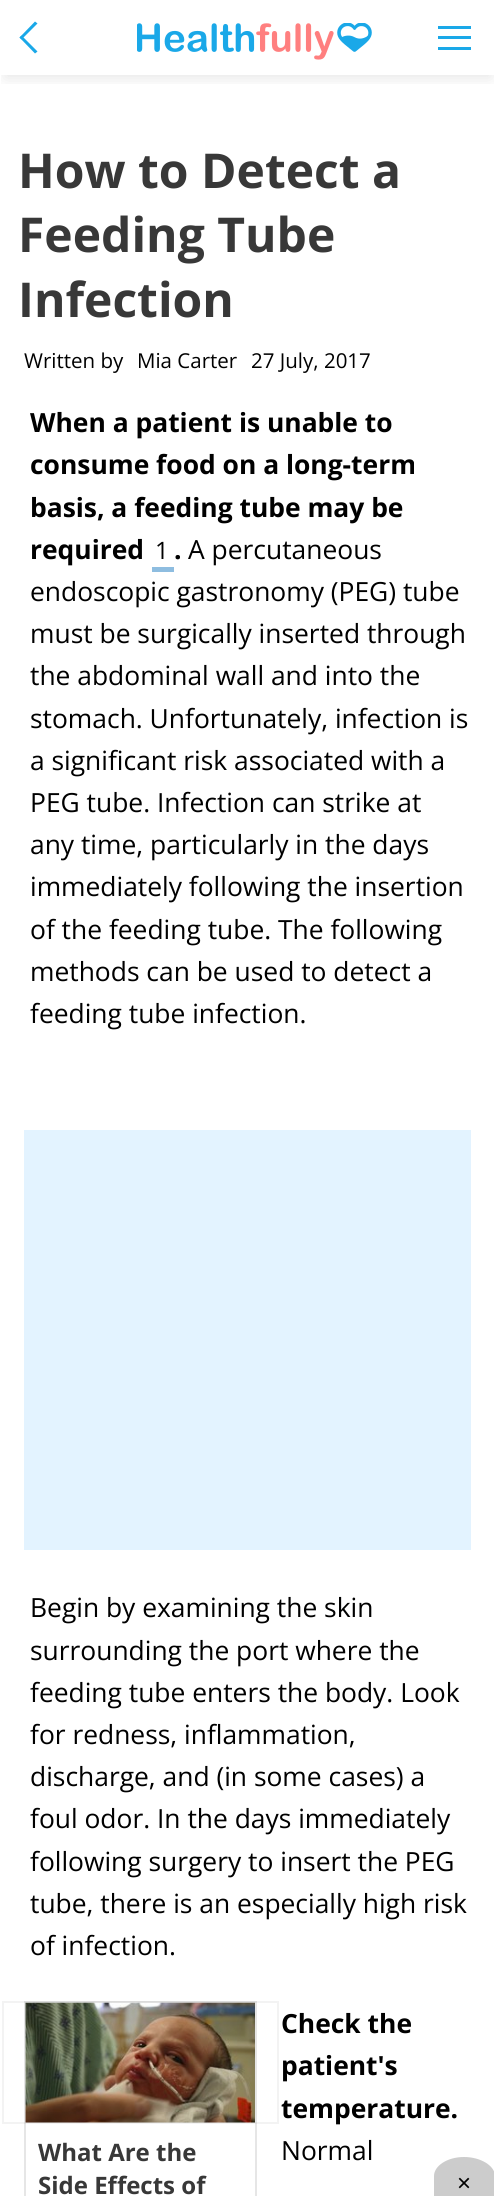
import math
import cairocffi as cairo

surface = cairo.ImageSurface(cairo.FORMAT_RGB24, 494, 2196)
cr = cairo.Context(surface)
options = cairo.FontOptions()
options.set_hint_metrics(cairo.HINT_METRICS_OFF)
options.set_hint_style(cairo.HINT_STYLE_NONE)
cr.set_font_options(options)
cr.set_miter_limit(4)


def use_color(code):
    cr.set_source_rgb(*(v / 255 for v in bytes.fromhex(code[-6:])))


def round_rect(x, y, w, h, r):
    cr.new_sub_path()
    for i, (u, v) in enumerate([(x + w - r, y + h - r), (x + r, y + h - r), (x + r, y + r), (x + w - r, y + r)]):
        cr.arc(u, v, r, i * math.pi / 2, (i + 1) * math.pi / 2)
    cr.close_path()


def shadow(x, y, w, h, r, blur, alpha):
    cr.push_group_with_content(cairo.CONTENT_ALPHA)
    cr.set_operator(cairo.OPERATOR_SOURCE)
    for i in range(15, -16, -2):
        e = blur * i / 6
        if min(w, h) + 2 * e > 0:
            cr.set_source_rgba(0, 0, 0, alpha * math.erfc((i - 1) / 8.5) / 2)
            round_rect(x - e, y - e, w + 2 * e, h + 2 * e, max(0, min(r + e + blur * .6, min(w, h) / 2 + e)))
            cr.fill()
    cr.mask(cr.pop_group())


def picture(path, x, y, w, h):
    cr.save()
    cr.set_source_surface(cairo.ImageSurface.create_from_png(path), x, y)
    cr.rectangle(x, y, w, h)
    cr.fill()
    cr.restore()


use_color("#ffffff")
cr.paint()
cr.save()
cr.rectangle(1, 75, 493, 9)
cr.clip()
use_color("#000000")
shadow(5, 12, 486, 66, 0, 7.5, 0.1)
cr.restore()
use_color("#1aa8e8")
cr.new_path()
cr.move_to(21.5, 35.5)
cr.line_to(37.5, 51.5)
cr.line_to(35, 53.5)
cr.line_to(19.5, 37.5)
cr.close_path()
cr.fill()
cr.new_path()
cr.move_to(35, 21.5)
cr.line_to(37.5, 23.5)
cr.line_to(21.5, 39.5)
cr.line_to(19.5, 37.5)
cr.close_path()
cr.fill()
picture("img1.png", 137, 23, 235, 37)
cr.rectangle(438, 26, 33, 3)
cr.fill()
cr.rectangle(438, 36, 33, 3)
cr.fill()
cr.rectangle(438, 47, 33, 3)
cr.fill()
cr.select_font_face("Open Sans", cairo.FONT_SLANT_NORMAL, cairo.FONT_WEIGHT_BOLD)
cr.set_font_size(48)
use_color("#383838")
cr.move_to(18, 188)
cr.show_text("How to Detect a")
cr.move_to(18, 252)
cr.show_text("Feeding Tube")
cr.move_to(18, 317)
cr.show_text("Infection")
cr.select_font_face("Open Sans")
cr.set_font_size(20.5)
use_color("#000000")
cr.move_to(24, 368)
cr.show_text("Written by")
cr.move_to(137, 368)
cr.show_text("Mia Carter")
cr.move_to(251, 368)
cr.show_text("27 July, 2017")
cr.select_font_face("Open Sans", cairo.FONT_SLANT_NORMAL, cairo.FONT_WEIGHT_BOLD)
cr.set_font_size(26.4)
cr.move_to(30, 432)
cr.show_text("When a patient is unable to")
cr.move_to(30, 474)
cr.show_text("consume food on a long-term")
cr.move_to(30, 517)
cr.show_text("basis, a feeding tube may be")
cr.move_to(30, 559)
cr.show_text("required")
cr.select_font_face("Open Sans")
cr.set_font_size(24)
cr.move_to(155, 559)
cr.show_text("1")
cr.select_font_face("Open Sans", cairo.FONT_SLANT_NORMAL, cairo.FONT_WEIGHT_BOLD)
cr.set_font_size(26.4)
cr.move_to(174, 559)
cr.show_text(".")
use_color("#8ebde0")
cr.rectangle(152, 567, 22, 5)
cr.fill()
cr.select_font_face("Open Sans")
use_color("#000000")
cr.move_to(188, 559)
cr.show_text("A percutaneous")
cr.move_to(30, 601)
cr.show_text("endoscopic gastronomy (PEG) tube")
cr.move_to(30, 643)
cr.show_text("must be surgically inserted through")
cr.move_to(30, 685)
cr.show_text("the abdominal wall and into the")
cr.move_to(30, 728)
cr.show_text("stomach. Unfortunately, infection is")
cr.move_to(30, 770)
cr.show_text("a significant risk associated with a")
cr.move_to(30, 812)
cr.show_text("PEG tube. Infection can strike at")
cr.move_to(30, 854)
cr.show_text("any time, particularly in the days")
cr.move_to(30, 896)
cr.show_text("immediately following the insertion")
cr.move_to(30, 939)
cr.show_text("of the feeding tube. The following")
cr.move_to(30, 981)
cr.show_text("methods can be used to detect a")
cr.move_to(30, 1023)
cr.show_text("feeding tube infection.")
use_color("#e3f3ff")
cr.rectangle(24, 1130, 447, 420)
cr.fill()
use_color("#000000")
cr.move_to(30, 1617)
cr.show_text("Begin by examining the skin")
cr.move_to(30, 1660)
cr.show_text("surrounding the port where the")
cr.move_to(30, 1702)
cr.show_text("feeding tube enters the body. Look")
cr.move_to(30, 1744)
cr.show_text("for redness, inflammation,")
cr.move_to(30, 1786)
cr.show_text("discharge, and (in some cases) a")
cr.move_to(30, 1828)
cr.show_text("foul odor. In the days immediately")
cr.move_to(30, 1871)
cr.show_text("following surgery to insert the PEG")
cr.move_to(30, 1913)
cr.show_text("tube, there is an especially high risk")
cr.move_to(30, 1955)
cr.show_text("of infection.")
cr.select_font_face("Open Sans", cairo.FONT_SLANT_NORMAL, cairo.FONT_WEIGHT_BOLD)
cr.move_to(281, 2033)
cr.show_text("Check the")
cr.move_to(281, 2075)
cr.show_text("patient's")
cr.move_to(281, 2118)
cr.show_text("temperature.")
cr.select_font_face("Open Sans")
cr.move_to(281, 2160)
cr.show_text("Normal")
cr.rectangle(25, 2002, 231, 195)
use_color("#e6e6e6")
cr.stroke()
picture("img2.png", 25, 2002, 230, 121)
cr.rectangle(3, 2002, 275, 121)
cr.set_source_rgba(0, 0, 0, 0.05)
cr.stroke()
cr.select_font_face("Open Sans", cairo.FONT_SLANT_NORMAL, cairo.FONT_WEIGHT_BOLD)
cr.set_font_size(24)
use_color("#383838")
cr.move_to(38, 2161)
cr.show_text("What Are the")
cr.move_to(38, 2194)
cr.show_text("Side Effects of")
cr.set_source_rgba(0, 0, 0, 0.2)
cr.new_path()
cr.move_to(464, 2157)
cr.curve_to(481, 2157, 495, 2166, 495, 2176)
cr.line_to(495, 2196)
cr.line_to(434, 2196)
cr.line_to(434, 2176)
cr.curve_to(434, 2166, 447, 2157, 464, 2157)
cr.close_path()
cr.fill()
cr.select_font_face("Liberation Sans")
use_color("#000000")
cr.move_to(457, 2191)
cr.show_text("×")
surface.write_to_png("result.png")
